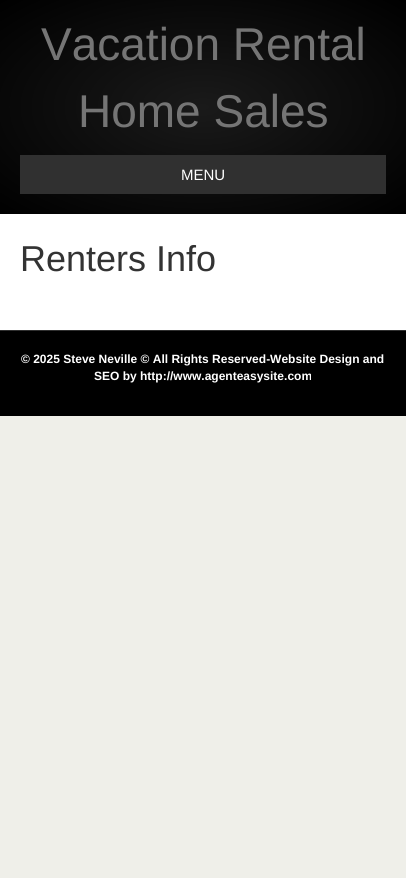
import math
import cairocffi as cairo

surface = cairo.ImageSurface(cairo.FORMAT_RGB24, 406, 878)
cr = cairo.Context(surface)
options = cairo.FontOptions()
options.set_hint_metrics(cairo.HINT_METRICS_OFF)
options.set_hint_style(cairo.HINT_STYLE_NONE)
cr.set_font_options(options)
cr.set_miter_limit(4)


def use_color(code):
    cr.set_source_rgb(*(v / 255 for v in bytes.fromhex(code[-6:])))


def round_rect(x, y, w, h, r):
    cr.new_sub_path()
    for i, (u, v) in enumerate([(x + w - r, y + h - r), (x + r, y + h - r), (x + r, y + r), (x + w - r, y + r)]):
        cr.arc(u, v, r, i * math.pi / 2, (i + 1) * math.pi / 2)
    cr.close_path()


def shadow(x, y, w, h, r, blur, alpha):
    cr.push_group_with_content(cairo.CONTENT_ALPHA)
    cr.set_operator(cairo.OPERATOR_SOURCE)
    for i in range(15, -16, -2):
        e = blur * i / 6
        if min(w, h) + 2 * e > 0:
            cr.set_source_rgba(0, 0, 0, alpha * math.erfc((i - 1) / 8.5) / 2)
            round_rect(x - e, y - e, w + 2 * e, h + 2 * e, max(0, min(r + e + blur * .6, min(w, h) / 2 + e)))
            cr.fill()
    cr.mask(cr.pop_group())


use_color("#efefe9")
cr.paint()
gradient = cairo.RadialGradient(0, 0, 0, 0, 0, 1)
gradient.set_matrix(cairo.Matrix(1 / 287, 0, 0, 1 / 151, -1 * 203 / 287, -1 * 107 / 151))
gradient.add_color_stop_rgba(0, 0.102, 0.102, 0.102, 1)
gradient.add_color_stop_rgba(1, 0, 0, 0, 1)
cr.set_source(gradient)
cr.rectangle(0, 0, 406, 214)
cr.fill()
cr.select_font_face("Liberation Sans")
cr.set_font_size(46)
use_color("#757575")
cr.move_to(41, 60)
cr.show_text("Vacation Rental")
cr.move_to(78, 127)
cr.show_text("Home Sales")
use_color("#303030")
cr.rectangle(20, 155, 366, 39)
cr.fill()
cr.set_font_size(15)
use_color("#ffffff")
cr.move_to(181, 180)
cr.show_text("MENU")
use_color("#000000")
shadow(0, 214, 406, 116, 0, 2.5, 0.15)
use_color("#ffffff")
cr.rectangle(0, 214, 406, 116)
cr.fill()
cr.set_font_size(36)
use_color("#333333")
cr.move_to(20, 271)
cr.show_text("Renters Info")
use_color("#000000")
cr.rectangle(0, 331, 406, 85)
cr.fill()
use_color("#303030")
cr.rectangle(0, 330, 406, 1)
cr.fill()
cr.select_font_face("Liberation Sans", cairo.FONT_SLANT_NORMAL, cairo.FONT_WEIGHT_BOLD)
cr.set_font_size(12)
use_color("#ffffff")
cr.move_to(21, 363)
cr.show_text("© 2025 Steve Neville © All Rights Reserved-Website Design and")
cr.move_to(94, 380)
cr.show_text("SEO by http://www.agenteasysite.com")
surface.write_to_png("result.png")
